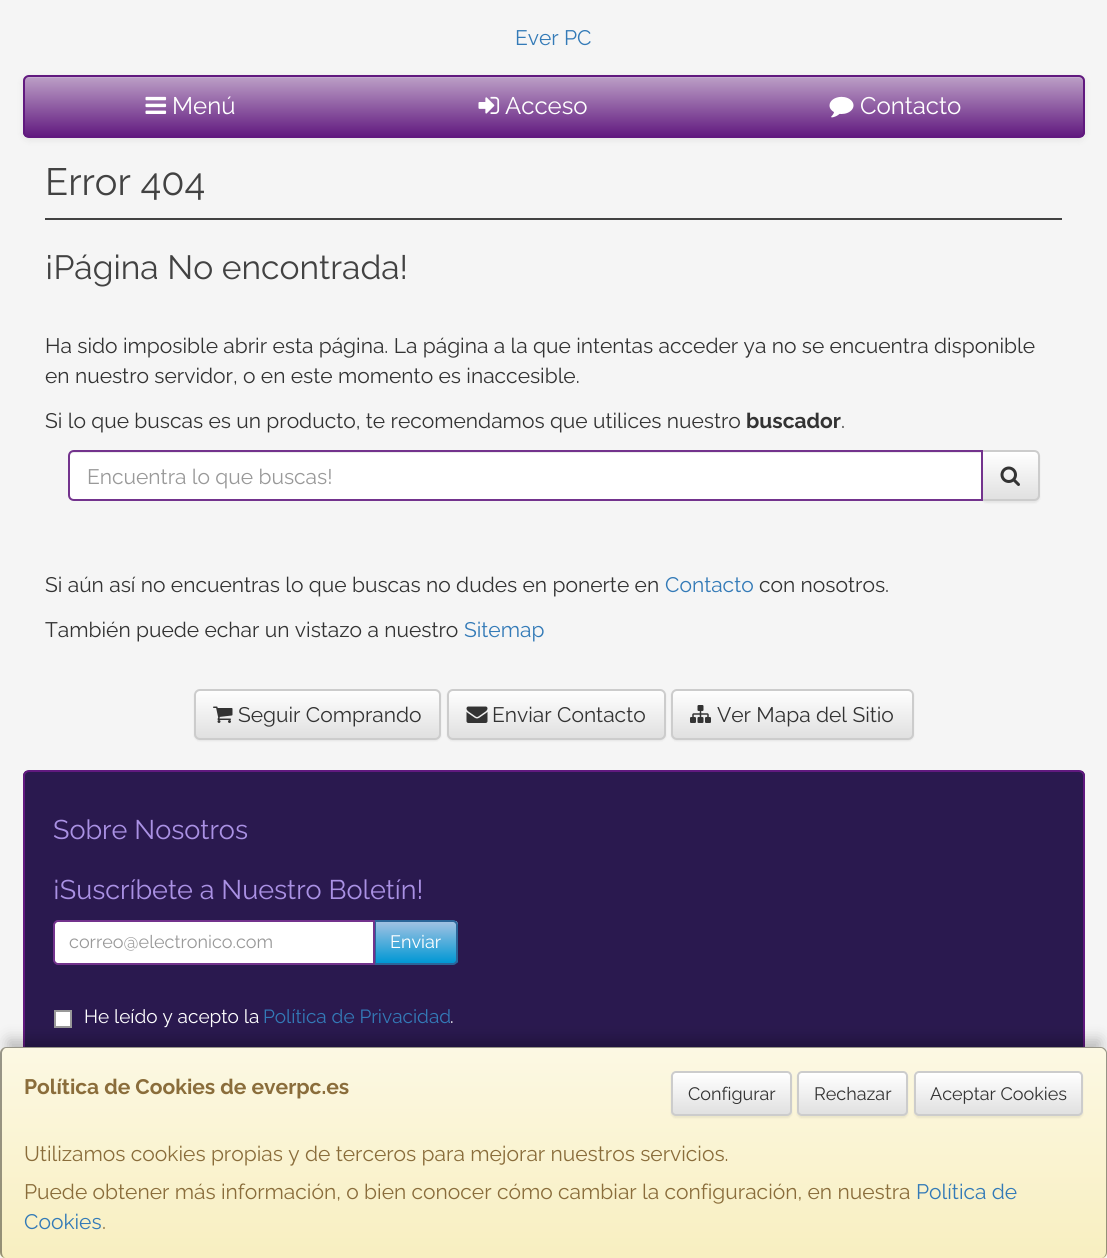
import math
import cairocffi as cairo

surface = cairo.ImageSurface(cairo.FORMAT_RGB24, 1107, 1258)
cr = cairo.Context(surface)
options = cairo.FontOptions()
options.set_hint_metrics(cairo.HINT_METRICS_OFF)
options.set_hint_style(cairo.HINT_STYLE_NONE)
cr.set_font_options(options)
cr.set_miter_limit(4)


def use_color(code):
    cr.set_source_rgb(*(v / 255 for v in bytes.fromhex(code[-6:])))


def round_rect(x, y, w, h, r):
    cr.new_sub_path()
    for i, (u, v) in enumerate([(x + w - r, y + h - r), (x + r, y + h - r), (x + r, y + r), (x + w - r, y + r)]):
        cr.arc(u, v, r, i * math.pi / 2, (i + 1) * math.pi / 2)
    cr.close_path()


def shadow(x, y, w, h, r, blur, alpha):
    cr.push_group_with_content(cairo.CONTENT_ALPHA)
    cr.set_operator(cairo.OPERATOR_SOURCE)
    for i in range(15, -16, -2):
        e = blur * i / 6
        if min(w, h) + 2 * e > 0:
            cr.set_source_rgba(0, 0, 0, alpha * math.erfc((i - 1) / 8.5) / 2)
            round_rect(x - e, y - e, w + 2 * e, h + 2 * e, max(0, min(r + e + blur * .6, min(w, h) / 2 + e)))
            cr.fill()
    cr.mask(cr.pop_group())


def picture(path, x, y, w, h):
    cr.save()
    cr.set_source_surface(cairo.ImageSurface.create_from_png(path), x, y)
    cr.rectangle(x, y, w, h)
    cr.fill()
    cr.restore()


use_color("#f5f5f5")
cr.paint()
cr.select_font_face("Raleway")
cr.set_font_size(21)
use_color("#337ab7")
cr.move_to(515, 45)
cr.show_text("Ever PC")
use_color("#000000")
shadow(23, 77, 1062, 63, 6, 4, 0.07)
cr.save()
round_rect(23, 75, 1062, 63, 6)
cr.clip()
gradient = cairo.LinearGradient(554, 76, 554, 137)
gradient.add_color_stop_rgba(0, 0.741, 0.631, 0.78, 1)
gradient.add_color_stop_rgba(1, 0.38, 0.098, 0.498, 1)
cr.set_source(gradient)
cr.rectangle(23, 77, 1062, 60)
cr.fill()
cr.restore()
cr.set_source_rgba(1, 1, 1, 0.15)
cr.new_path()
cr.move_to(28, 78)
cr.line_to(1078, 78)
cr.curve_to(1081, 78, 1083, 80, 1083, 82)
cr.curve_to(1083, 79, 1081, 77, 1078, 77)
cr.line_to(29, 77)
cr.curve_to(26, 77, 24, 79, 24, 82)
cr.curve_to(24, 80, 26, 78, 28, 78)
cr.close_path()
cr.fill()
round_rect(24, 76, 1060, 61, 5)
use_color("#61197f")
cr.stroke()
picture("img1.png", 145, 96, 22, 18)
cr.set_font_size(24)
use_color("#ffffff")
cr.move_to(172, 114)
cr.show_text("Menú")
picture("img2.png", 478, 96, 22, 18)
cr.move_to(505, 114)
cr.show_text("Acceso")
picture("img3.png", 829, 96, 25, 22)
cr.move_to(860, 114)
cr.show_text("Contacto")
use_color("#424242")
cr.rectangle(45, 218, 1017, 2)
cr.fill()
cr.set_font_size(38)
cr.move_to(45, 195)
cr.show_text("Error 404")
cr.set_font_size(33.6)
cr.move_to(45, 279)
cr.show_text("¡Página No encontrada!")
cr.set_font_size(21)
use_color("#333333")
cr.move_to(45, 353)
cr.show_text("Ha sido imposible abrir esta página. La página a la que intentas acceder ya no se encuentra disponible")
cr.move_to(45, 383)
cr.show_text("en nuestro servidor, o en este momento es inaccesible.")
cr.move_to(45, 428)
cr.show_text("Si lo que buscas es un producto, te recomendamos que utilices nuestro")
cr.select_font_face("Raleway", cairo.FONT_SLANT_NORMAL, cairo.FONT_WEIGHT_BOLD)
cr.move_to(746, 428)
cr.show_text("buscador")
cr.select_font_face("Raleway")
cr.move_to(841, 428)
cr.show_text(".")
use_color("#000000")
shadow(981, 452, 59, 51, 6, 1, 0.07)
cr.save()
cr.new_path()
cr.move_to(981, 450)
cr.line_to(1034, 450)
cr.curve_to(1037.5, 450, 1040, 452.5, 1040, 456)
cr.line_to(1040, 495)
cr.curve_to(1040, 498.5, 1037.5, 501, 1034, 501)
cr.line_to(981, 501)
cr.close_path()
cr.clip()
gradient = cairo.LinearGradient(1010, 452, 1010, 500)
gradient.add_color_stop_rgba(0, 1, 1, 1, 1)
gradient.add_color_stop_rgba(1, 0.878, 0.878, 0.878, 1)
cr.set_source(gradient)
cr.rectangle(983, 452, 57, 48)
cr.fill()
cr.restore()
cr.new_path()
cr.move_to(982, 451)
cr.line_to(1034, 451)
cr.curve_to(1037, 451, 1039, 453, 1039, 456)
cr.line_to(1039, 495)
cr.curve_to(1039, 498, 1037, 500, 1034, 500)
cr.line_to(982, 500)
cr.close_path()
use_color("#cccccc")
cr.stroke()
use_color("#ffffff")
cr.new_path()
cr.move_to(74, 450)
cr.line_to(983, 450)
cr.line_to(983, 501)
cr.line_to(74, 501)
cr.curve_to(70.5, 501, 68, 498.5, 68, 495)
cr.line_to(68, 456)
cr.curve_to(68, 452.5, 70.5, 450, 74, 450)
cr.close_path()
cr.fill()
use_color("#ececec")
cr.new_path()
cr.move_to(74, 453)
cr.line_to(981, 453)
cr.line_to(981, 452)
cr.line_to(74, 452)
cr.curve_to(71, 452, 69, 455, 69, 458)
cr.curve_to(69, 455, 71, 453, 74, 453)
cr.close_path()
cr.fill()
cr.new_path()
cr.move_to(74, 451)
cr.line_to(982, 451)
cr.line_to(982, 500)
cr.line_to(74, 500)
cr.curve_to(71, 500, 69, 498, 69, 495)
cr.line_to(69, 456)
cr.curve_to(69, 453, 71, 451, 74, 451)
cr.close_path()
use_color("#73338d")
cr.stroke()
use_color("#999999")
cr.move_to(87, 484)
cr.show_text("Encuentra lo que buscas!")
picture("img4.png", 1000, 466, 20, 20)
use_color("#333333")
cr.move_to(45, 592)
cr.show_text("Si aún así no encuentras lo que buscas no dudes en ponerte en")
use_color("#337ab7")
cr.move_to(665, 592)
cr.show_text("Contacto")
use_color("#333333")
cr.move_to(759, 592)
cr.show_text("con nosotros.")
cr.move_to(45, 637)
cr.show_text("También puede echar un vistazo a nuestro")
use_color("#337ab7")
cr.move_to(464, 637)
cr.show_text("Sitemap")
use_color("#000000")
shadow(194, 690, 247, 51, 6, 1, 0.07)
cr.save()
round_rect(194, 689, 247, 51, 6)
cr.clip()
gradient = cairo.LinearGradient(317, 690, 317, 738)
gradient.add_color_stop_rgba(0, 1, 1, 1, 1)
gradient.add_color_stop_rgba(1, 0.878, 0.878, 0.878, 1)
cr.set_source(gradient)
cr.rectangle(194, 690, 247, 48)
cr.fill()
cr.restore()
round_rect(195, 690, 245, 49, 5)
use_color("#cccccc")
cr.stroke()
picture("img5.png", 213, 706, 20, 17)
use_color("#333333")
cr.move_to(238, 722)
cr.show_text("Seguir Comprando")
use_color("#000000")
shadow(447, 690, 219, 51, 6, 1, 0.07)
cr.save()
round_rect(447, 689, 219, 51, 6)
cr.clip()
gradient = cairo.LinearGradient(557, 690, 557, 738)
gradient.add_color_stop_rgba(0, 1, 1, 1, 1)
gradient.add_color_stop_rgba(1, 0.878, 0.878, 0.878, 1)
cr.set_source(gradient)
cr.rectangle(447, 690, 219, 48)
cr.fill()
cr.restore()
cr.set_source_rgba(1, 1, 1, 0.15)
cr.new_path()
cr.move_to(453, 692)
cr.line_to(660, 692)
cr.curve_to(662, 692, 664, 694, 664, 696)
cr.line_to(664, 736)
cr.curve_to(665, 735, 665, 734, 665, 733)
cr.line_to(665, 695)
cr.curve_to(665, 692, 663, 690, 660, 690)
cr.line_to(454, 690)
cr.curve_to(452, 690, 450, 692, 449, 694)
cr.curve_to(450, 693, 452, 692, 453, 692)
cr.close_path()
cr.fill()
round_rect(448, 690, 217, 49, 5)
use_color("#cccccc")
cr.stroke()
picture("img6.png", 466, 706, 22, 17)
use_color("#333333")
cr.move_to(492, 722)
cr.show_text("Enviar Contacto")
use_color("#000000")
shadow(671, 690, 243, 51, 6, 1, 0.07)
cr.save()
round_rect(671, 689, 243, 51, 6)
cr.clip()
gradient = cairo.LinearGradient(792, 690, 792, 738)
gradient.add_color_stop_rgba(0, 1, 1, 1, 1)
gradient.add_color_stop_rgba(1, 0.878, 0.878, 0.878, 1)
cr.set_source(gradient)
cr.rectangle(671, 690, 243, 48)
cr.fill()
cr.restore()
round_rect(672, 690, 241, 49, 5)
use_color("#cccccc")
cr.stroke()
picture("img7.png", 690, 705, 21, 18)
use_color("#333333")
cr.move_to(717, 722)
cr.show_text("Ver Mapa del Sitio")
cr.save()
round_rect(23, 770, 1062, 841, 6)
cr.clip()
use_color("#2a194f")
cr.rectangle(23, 771, 1062, 276)
cr.fill()
cr.restore()
round_rect(24, 771, 1060, 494, 5)
use_color("#61197f")
cr.stroke()
cr.set_font_size(27)
use_color("#aa91e4")
cr.move_to(53, 839)
cr.show_text("Sobre Nosotros")
cr.move_to(53, 899)
cr.show_text("¡Suscríbete a Nuestro Boletín!")
cr.save()
cr.new_path()
cr.move_to(374, 920)
cr.line_to(453, 920)
cr.curve_to(456, 920, 458, 922, 458, 925)
cr.line_to(458, 960)
cr.curve_to(458, 963, 456, 965, 453, 965)
cr.line_to(374, 965)
cr.close_path()
cr.clip()
gradient = cairo.LinearGradient(416, 921, 416, 963)
gradient.add_color_stop_rgba(0, 0.647, 0.761, 0.89, 1)
gradient.add_color_stop_rgba(1, 0, 0.596, 0.831, 1)
cr.set_source(gradient)
cr.rectangle(376, 921, 82, 42)
cr.fill()
cr.restore()
cr.set_source_rgba(1, 1, 1, 0.15)
cr.new_path()
cr.move_to(375, 922)
cr.line_to(453, 922)
cr.curve_to(455, 922, 456, 924, 456, 926)
cr.line_to(456, 924)
cr.curve_to(456, 922, 455, 921, 453, 921)
cr.line_to(375, 921)
cr.close_path()
cr.fill()
cr.new_path()
cr.move_to(375, 921)
cr.line_to(453, 921)
cr.curve_to(455, 921, 457, 923, 457, 925)
cr.line_to(457, 960)
cr.curve_to(457, 962, 455, 964, 453, 964)
cr.line_to(375, 964)
cr.close_path()
use_color("#2b669a")
cr.stroke()
use_color("#ffffff")
cr.new_path()
cr.move_to(58, 921)
cr.line_to(374, 921)
cr.line_to(374, 964)
cr.line_to(58, 964)
cr.curve_to(56, 964, 54, 962, 54, 960)
cr.line_to(54, 925)
cr.curve_to(54, 923, 56, 921, 58, 921)
cr.close_path()
cr.fill_preserve()
use_color("#73338d")
cr.stroke()
cr.set_font_size(18)
use_color("#999999")
cr.move_to(69, 948)
cr.show_text("correo@electronico.com")
use_color("#ffffff")
cr.move_to(390, 948)
cr.show_text("Enviar")
cr.rectangle(55, 1011, 16, 16)
cr.fill_preserve()
use_color("#999999")
cr.stroke()
cr.set_font_size(19)
use_color("#ffffff")
cr.move_to(84, 1023)
cr.show_text("He leído y acepto la")
use_color("#337ab7")
cr.move_to(263, 1023)
cr.show_text("Política de Privacidad")
use_color("#ffffff")
cr.move_to(450, 1023)
cr.show_text(".")
use_color("#000000")
shadow(8, 1040, 1092, 196, 0, 7.5, 0.25)
use_color("#fcf8e3")
round_rect(0, 1047, 1107, 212, 6)
cr.fill()
cr.save()
round_rect(0, 1047, 1107, 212, 6)
cr.clip()
gradient = cairo.LinearGradient(554, 1049, 554, 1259)
gradient.add_color_stop_rgba(0, 0.988, 0.973, 0.89, 1)
gradient.add_color_stop_rgba(1, 0.973, 0.937, 0.753, 1)
cr.set_source(gradient)
cr.new_path()
cr.move_to(0, 1049)
cr.line_to(1107, 1049)
cr.line_to(1107, 1253)
cr.curve_to(1107, 1256.5, 1104.5, 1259, 1101, 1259)
cr.line_to(6, 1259)
cr.curve_to(2.5, 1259, 0, 1256.5, 0, 1253)
cr.close_path()
cr.fill()
cr.restore()
cr.set_source_rgba(0, 0, 0, 0.4)
cr.set_fill_rule(cairo.FILL_RULE_EVEN_ODD)
cr.new_path()
cr.move_to(6, 1047)
cr.line_to(1101, 1047)
cr.curve_to(1104, 1047, 1107, 1050, 1107, 1053)
cr.line_to(1107, 1252)
cr.curve_to(1107, 1256, 1104, 1258, 1101, 1258)
cr.line_to(6, 1258)
cr.curve_to(3, 1258, 0, 1256, 0, 1252)
cr.line_to(0, 1053)
cr.curve_to(0, 1050, 3, 1047, 6, 1047)
cr.close_path()
cr.move_to(6, 1048)
cr.line_to(1101, 1048)
cr.curve_to(1103, 1048, 1106, 1051, 1106, 1053)
cr.line_to(1106, 1252)
cr.curve_to(1106, 1256, 1103, 1258, 1101, 1258)
cr.line_to(6, 1258)
cr.curve_to(4, 1258, 2, 1256, 2, 1252)
cr.line_to(2, 1053)
cr.curve_to(2, 1051, 4, 1048, 6, 1048)
cr.close_path()
cr.fill()
cr.select_font_face("Raleway", cairo.FONT_SLANT_NORMAL, cairo.FONT_WEIGHT_BOLD)
cr.set_font_size(21)
use_color("#8a6d3b")
cr.move_to(24, 1094)
cr.show_text("Política de Cookies de everpc.es")
use_color("#000000")
shadow(671, 1073, 121, 45, 5, 1, 0.07)
cr.save()
cr.set_fill_rule(cairo.FILL_RULE_WINDING)
round_rect(671, 1071, 121, 45, 5)
cr.clip()
gradient = cairo.LinearGradient(731, 1073, 731, 1115)
gradient.add_color_stop_rgba(0, 1, 1, 1, 1)
gradient.add_color_stop_rgba(1, 0.878, 0.878, 0.878, 1)
cr.set_source(gradient)
cr.rectangle(671, 1073, 121, 42)
cr.fill()
cr.restore()
cr.set_source_rgba(1, 1, 1, 0.15)
cr.set_fill_rule(cairo.FILL_RULE_WINDING)
cr.new_path()
cr.move_to(675, 1074)
cr.line_to(769, 1074)
cr.curve_to(793, 1074, 790, 1069, 790, 1089)
cr.line_to(790, 1114)
cr.curve_to(791, 1114, 791, 1113, 791, 1112)
cr.line_to(791, 1076)
cr.curve_to(791, 1074, 790, 1073, 788, 1073)
cr.line_to(675, 1073)
cr.curve_to(673, 1073, 672, 1074, 672, 1076)
cr.line_to(672, 1077)
cr.curve_to(672, 1075, 673, 1074, 675, 1074)
cr.close_path()
cr.fill()
round_rect(672, 1072, 119, 43, 4)
use_color("#cccccc")
cr.stroke()
cr.select_font_face("Raleway")
cr.set_font_size(18)
use_color("#333333")
cr.move_to(688, 1100)
cr.show_text("Configurar")
use_color("#000000")
shadow(797, 1073, 111, 45, 5, 1, 0.07)
cr.save()
round_rect(797, 1071, 111, 45, 5)
cr.clip()
gradient = cairo.LinearGradient(852, 1073, 852, 1115)
gradient.add_color_stop_rgba(0, 1, 1, 1, 1)
gradient.add_color_stop_rgba(1, 0.878, 0.878, 0.878, 1)
cr.set_source(gradient)
cr.rectangle(797, 1073, 111, 42)
cr.fill()
cr.restore()
round_rect(798, 1072, 109, 43, 4)
use_color("#cccccc")
cr.stroke()
use_color("#333333")
cr.move_to(814, 1100)
cr.show_text("Rechazar")
use_color("#000000")
shadow(914, 1073, 169, 45, 5, 1, 0.07)
cr.save()
round_rect(914, 1071, 169, 45, 5)
cr.clip()
gradient = cairo.LinearGradient(998, 1073, 998, 1115)
gradient.add_color_stop_rgba(0, 1, 1, 1, 1)
gradient.add_color_stop_rgba(1, 0.878, 0.878, 0.878, 1)
cr.set_source(gradient)
cr.rectangle(914, 1073, 169, 42)
cr.fill()
cr.restore()
round_rect(915, 1072, 167, 43, 4)
use_color("#cccccc")
cr.stroke()
use_color("#333333")
cr.move_to(930, 1100)
cr.show_text("Aceptar Cookies")
cr.set_font_size(21)
use_color("#8a6d3b")
cr.move_to(24, 1161)
cr.show_text("Utilizamos cookies propias y de terceros para mejorar nuestros servicios.")
cr.move_to(24, 1199)
cr.show_text("Puede obtener más información, o bien conocer cómo cambiar la configuración, en nuestra")
use_color("#337ab7")
cr.move_to(916, 1199)
cr.show_text("Política de")
cr.move_to(24, 1229)
cr.show_text("Cookies")
use_color("#8a6d3b")
cr.move_to(102, 1229)
cr.show_text(".")
surface.write_to_png("result.png")
